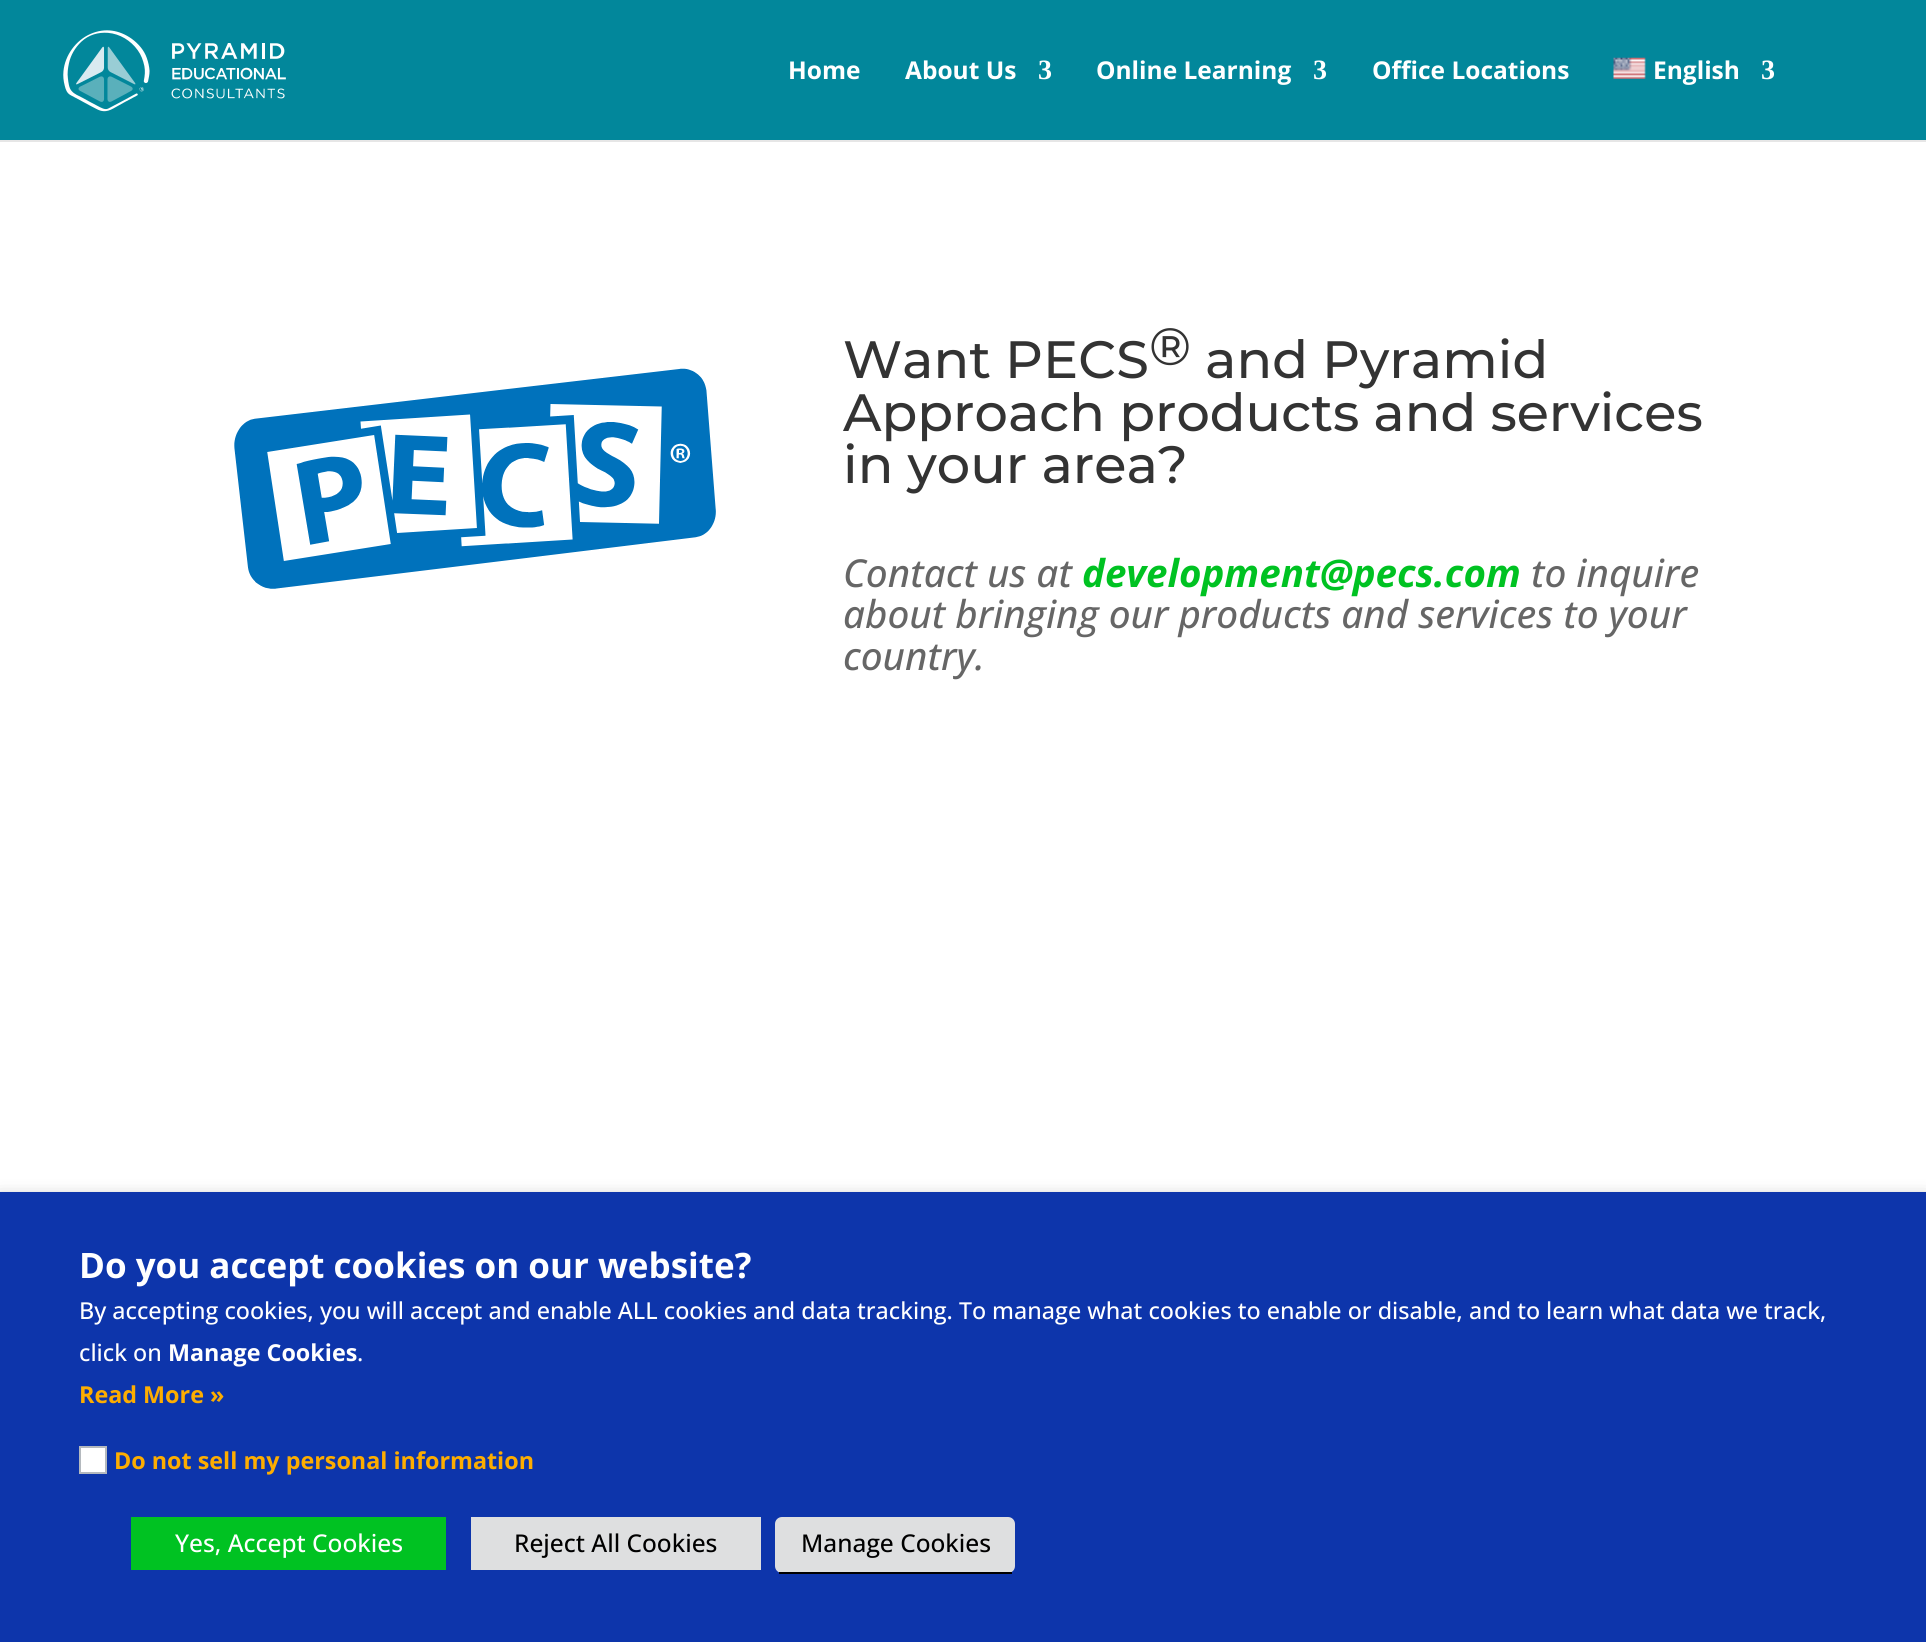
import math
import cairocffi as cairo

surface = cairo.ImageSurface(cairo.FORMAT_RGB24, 1926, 1642)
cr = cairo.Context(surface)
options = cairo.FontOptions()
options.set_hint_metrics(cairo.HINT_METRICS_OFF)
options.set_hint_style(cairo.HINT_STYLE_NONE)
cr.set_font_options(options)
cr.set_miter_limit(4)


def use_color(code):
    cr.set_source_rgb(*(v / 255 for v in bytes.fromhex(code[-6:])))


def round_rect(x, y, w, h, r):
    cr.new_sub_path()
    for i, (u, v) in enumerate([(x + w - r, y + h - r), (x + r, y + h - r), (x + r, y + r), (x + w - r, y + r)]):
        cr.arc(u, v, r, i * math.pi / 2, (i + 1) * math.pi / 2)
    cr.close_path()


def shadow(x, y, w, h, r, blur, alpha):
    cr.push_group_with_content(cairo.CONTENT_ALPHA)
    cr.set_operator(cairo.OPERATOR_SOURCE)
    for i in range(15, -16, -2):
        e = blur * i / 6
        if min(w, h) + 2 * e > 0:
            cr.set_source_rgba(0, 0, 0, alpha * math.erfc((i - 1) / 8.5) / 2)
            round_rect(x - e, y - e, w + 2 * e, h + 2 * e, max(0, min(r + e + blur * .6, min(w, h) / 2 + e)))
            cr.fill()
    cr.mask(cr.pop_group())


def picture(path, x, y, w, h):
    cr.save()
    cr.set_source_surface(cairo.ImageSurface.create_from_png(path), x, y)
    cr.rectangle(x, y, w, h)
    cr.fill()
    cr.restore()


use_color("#ffffff")
cr.paint()
use_color("#e6e6e6")
cr.new_path()
cr.move_to(0, 140)
cr.line_to(0, 142)
cr.line_to(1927, 142)
cr.line_to(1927, 2)
cr.line_to(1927, 140)
cr.close_path()
cr.fill()
use_color("#02879b")
cr.rectangle(0, 0, 1926, 140)
cr.fill()
picture("img1.png", 63, 30, 223, 82)
cr.select_font_face("Open Sans", cairo.FONT_SLANT_NORMAL, cairo.FONT_WEIGHT_BOLD)
cr.set_font_size(24.5)
use_color("#ffffff")
cr.move_to(788, 79)
cr.show_text("Home")
cr.move_to(905, 79)
cr.show_text("About Us")
cr.select_font_face("Liberation Serif", cairo.FONT_SLANT_NORMAL, cairo.FONT_WEIGHT_BOLD)
cr.set_font_size(28)
cr.move_to(1038, 79)
cr.show_text("3")
cr.select_font_face("Open Sans", cairo.FONT_SLANT_NORMAL, cairo.FONT_WEIGHT_BOLD)
cr.set_font_size(24.5)
cr.move_to(1096, 79)
cr.show_text("Online Learning")
cr.select_font_face("Liberation Serif", cairo.FONT_SLANT_NORMAL, cairo.FONT_WEIGHT_BOLD)
cr.set_font_size(28)
cr.move_to(1313, 79)
cr.show_text("3")
cr.select_font_face("Open Sans", cairo.FONT_SLANT_NORMAL, cairo.FONT_WEIGHT_BOLD)
cr.set_font_size(24.5)
cr.move_to(1372, 79)
cr.show_text("Office Locations")
picture("img2.png", 1613, 57, 33, 22)
cr.move_to(1653, 79)
cr.show_text("English")
cr.select_font_face("Liberation Serif", cairo.FONT_SLANT_NORMAL, cairo.FONT_WEIGHT_BOLD)
cr.set_font_size(28)
cr.move_to(1761, 79)
cr.show_text("3")
picture("img3.png", 234, 368, 482, 221)
cr.select_font_face("Montserrat Medium")
cr.set_font_size(52.5)
use_color("#333333")
cr.move_to(843, 378)
cr.show_text("Want PECS")
cr.move_to(1149, 365)
cr.show_text("®")
cr.move_to(1205, 378)
cr.show_text("and Pyramid")
cr.move_to(843, 431)
cr.show_text("Approach products and services")
cr.move_to(843, 483)
cr.show_text("in your area?")
cr.select_font_face("Open Sans Medium", cairo.FONT_SLANT_ITALIC)
cr.set_font_size(38.5)
use_color("#666666")
cr.move_to(843, 587)
cr.show_text("Contact us at")
cr.select_font_face("Open Sans", cairo.FONT_SLANT_ITALIC, cairo.FONT_WEIGHT_BOLD)
use_color("#00c222")
cr.move_to(1082, 587)
cr.show_text("development@pecs.com")
cr.select_font_face("Open Sans Medium", cairo.FONT_SLANT_ITALIC)
use_color("#666666")
cr.move_to(1531, 587)
cr.show_text("to inquire")
cr.move_to(843, 628)
cr.show_text("about bringing our products and services to your")
cr.move_to(843, 670)
cr.show_text("country.")
use_color("#000000")
shadow(0, 1201, 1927, 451, 0, 9, 0.5)
use_color("#0d35ab")
cr.rectangle(0, 1192, 1926, 450)
cr.fill()
cr.select_font_face("Open Sans", cairo.FONT_SLANT_NORMAL, cairo.FONT_WEIGHT_BOLD)
cr.set_font_size(35)
use_color("#ffffff")
cr.move_to(79, 1278)
cr.show_text("Do you accept cookies on our website?")
cr.select_font_face("Open Sans Medium")
cr.set_font_size(23.33)
cr.move_to(79, 1319)
cr.show_text("By accepting cookies, you will accept and enable ALL cookies and data tracking. To manage what cookies to enable or disable, and to learn what data we track,")
cr.move_to(79, 1361)
cr.show_text("click on")
cr.select_font_face("Open Sans", cairo.FONT_SLANT_NORMAL, cairo.FONT_WEIGHT_BOLD)
cr.move_to(168, 1361)
cr.show_text("Manage Cookies")
cr.select_font_face("Open Sans Medium")
cr.move_to(357, 1361)
cr.show_text(".")
cr.select_font_face("Open Sans", cairo.FONT_SLANT_NORMAL, cairo.FONT_WEIGHT_BOLD)
use_color("#fdad00")
cr.move_to(79, 1403)
cr.show_text("Read More »")
use_color("#ffffff")
cr.rectangle(80, 1447, 26, 26)
cr.fill_preserve()
use_color("#b4b9be")
cr.stroke()
use_color("#fdad00")
cr.move_to(114, 1469)
cr.show_text("Do not sell my personal information")
use_color("#00c222")
cr.rectangle(131, 1517, 315, 53)
cr.fill()
cr.select_font_face("Open Sans Medium")
cr.set_font_size(24.5)
use_color("#ffffff")
cr.move_to(175, 1552)
cr.show_text("Yes, Accept Cookies")
use_color("#dedfe0")
cr.rectangle(471, 1517, 290, 53)
cr.fill()
use_color("#000000")
cr.move_to(514, 1552)
cr.show_text("Reject All Cookies")
use_color("#dedfe0")
round_rect(775, 1517, 240, 56, 7)
cr.fill()
use_color("#000000")
cr.rectangle(779, 1572, 233, 2)
cr.fill()
cr.move_to(801, 1552)
cr.show_text("Manage Cookies")
surface.write_to_png("result.png")
